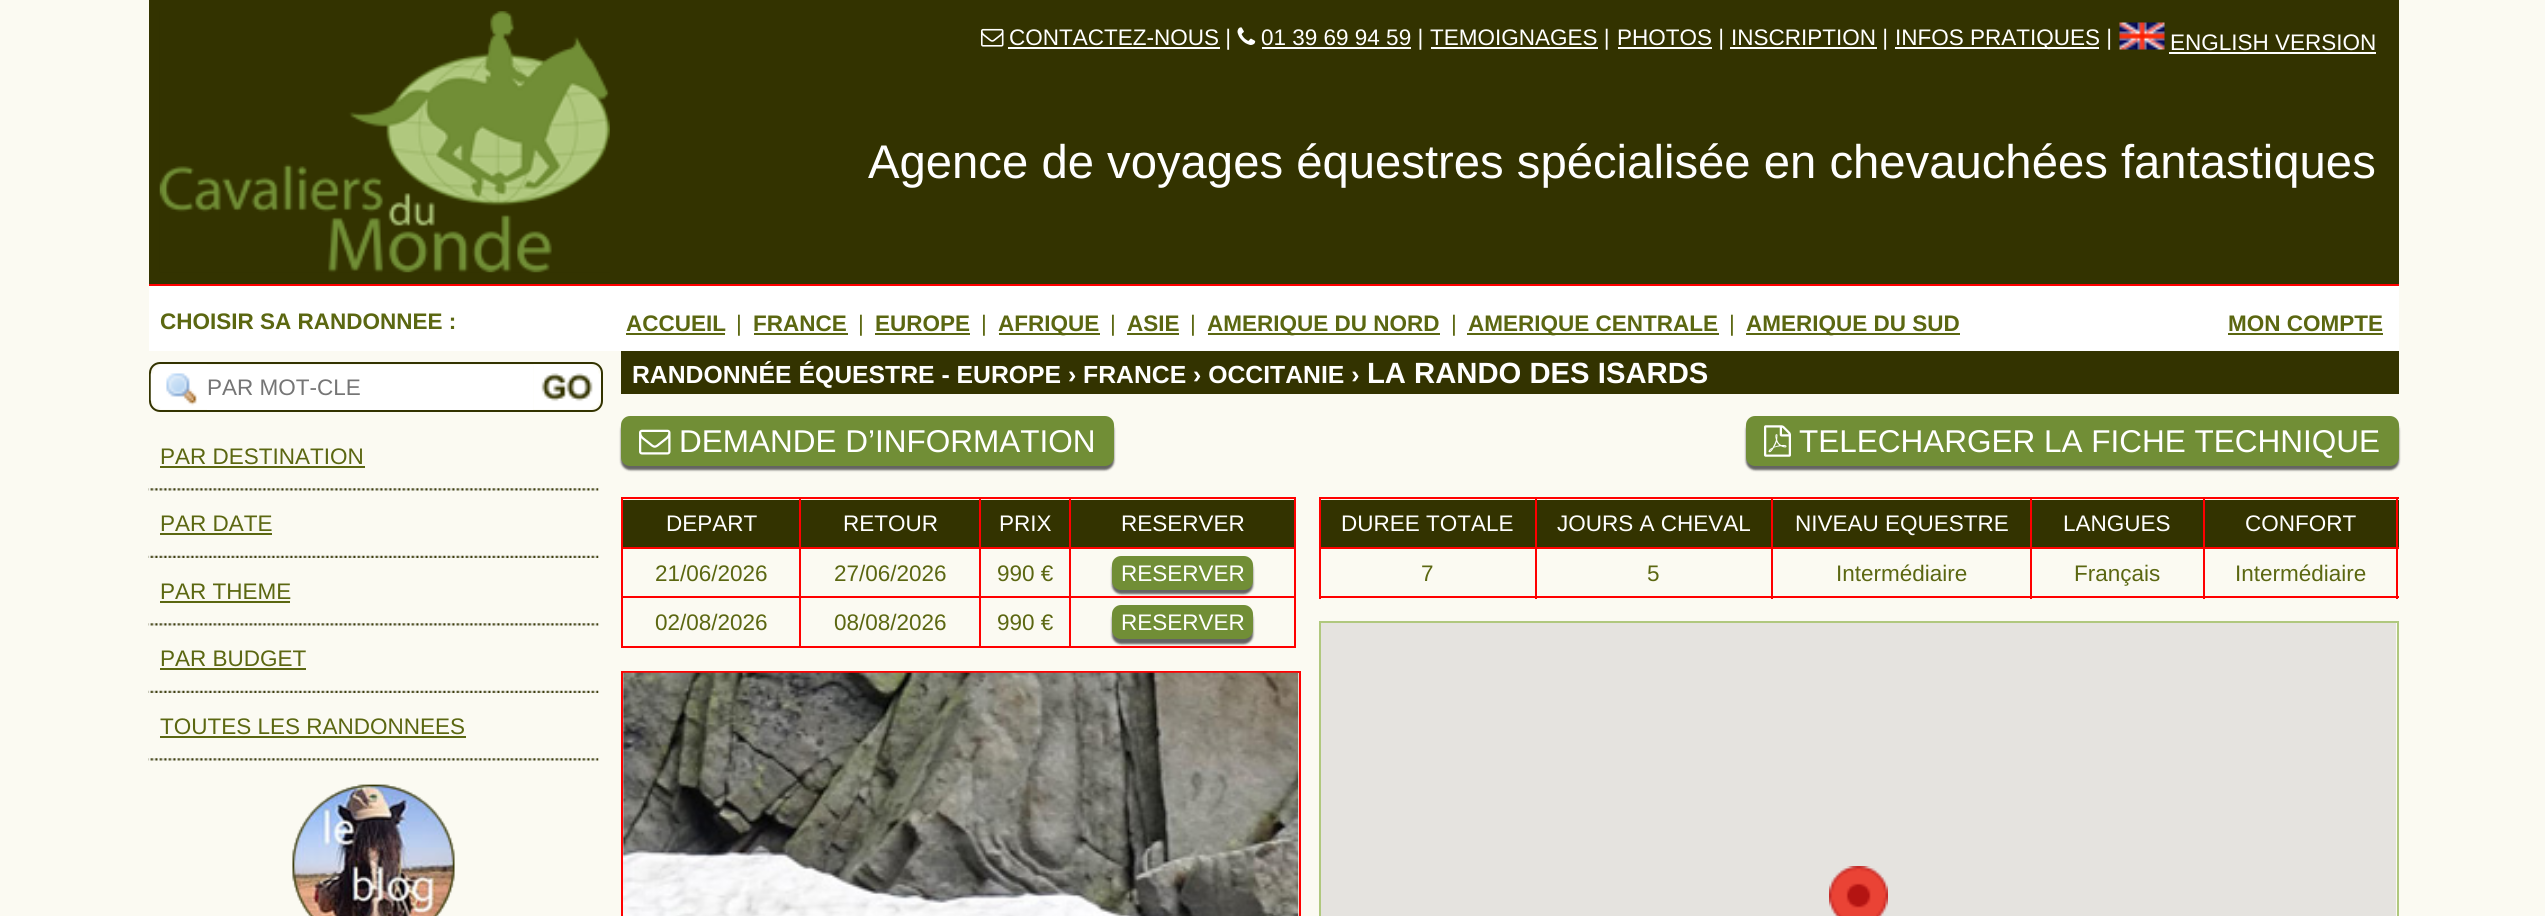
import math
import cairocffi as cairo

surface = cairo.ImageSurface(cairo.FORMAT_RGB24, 2545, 916)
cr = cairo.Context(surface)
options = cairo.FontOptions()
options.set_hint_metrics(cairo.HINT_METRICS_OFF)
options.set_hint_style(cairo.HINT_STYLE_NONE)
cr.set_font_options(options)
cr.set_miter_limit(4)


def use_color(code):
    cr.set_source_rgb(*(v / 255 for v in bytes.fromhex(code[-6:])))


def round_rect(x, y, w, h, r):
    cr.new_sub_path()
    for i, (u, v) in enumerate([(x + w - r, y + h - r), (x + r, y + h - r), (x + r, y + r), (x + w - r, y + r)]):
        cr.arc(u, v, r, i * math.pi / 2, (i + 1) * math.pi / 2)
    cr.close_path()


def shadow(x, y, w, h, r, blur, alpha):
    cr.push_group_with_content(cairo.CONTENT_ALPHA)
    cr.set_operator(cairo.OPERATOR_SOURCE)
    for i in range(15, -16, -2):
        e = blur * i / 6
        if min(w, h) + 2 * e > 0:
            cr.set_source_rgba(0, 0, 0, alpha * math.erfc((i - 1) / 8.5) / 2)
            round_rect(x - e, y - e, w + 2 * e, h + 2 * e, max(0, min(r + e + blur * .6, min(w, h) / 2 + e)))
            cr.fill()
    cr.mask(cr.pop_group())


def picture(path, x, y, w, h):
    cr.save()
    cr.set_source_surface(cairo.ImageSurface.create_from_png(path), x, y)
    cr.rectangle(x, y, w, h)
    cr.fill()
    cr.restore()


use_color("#fbfaf2")
cr.paint()
use_color("#333300")
cr.rectangle(149, 0, 2250, 284)
cr.fill()
picture("img1.png", 159, 11, 451, 262)
picture("img2.png", 981, 28, 23, 19)
use_color("#ffffff")
cr.rectangle(1008, 47, 212, 2)
cr.fill()
cr.select_font_face("Liberation Sans")
cr.set_font_size(22.5)
cr.move_to(1009, 45)
cr.show_text("CONTACTEZ-NOUS |")
picture("img3.png", 1237, 27, 19, 18)
cr.rectangle(1262, 47, 149, 2)
cr.fill()
cr.move_to(1261, 45)
cr.show_text("01 39 69 94 59 |")
cr.rectangle(1431, 47, 167, 2)
cr.fill()
cr.move_to(1430, 45)
cr.show_text("TEMOIGNAGES |")
cr.rectangle(1618, 47, 94, 2)
cr.fill()
cr.move_to(1617, 45)
cr.show_text("PHOTOS |")
cr.rectangle(1730, 47, 147, 2)
cr.fill()
cr.move_to(1731, 45)
cr.show_text("INSCRIPTION |")
cr.rectangle(1895, 47, 204, 2)
cr.fill()
cr.move_to(1895, 45)
cr.show_text("INFOS PRATIQUES |")
picture("img4.png", 2119, 22, 46, 28)
cr.move_to(2170, 50)
cr.show_text("ENGLISH VERSION")
cr.rectangle(2169, 52, 207, 2)
cr.fill()
cr.set_font_size(47.25)
cr.move_to(868, 178)
cr.show_text("Agence de voyages équestres spécialisée en chevauchées fantastiques")
cr.rectangle(149, 286, 2250, 65)
cr.fill()
cr.select_font_face("Liberation Sans", cairo.FONT_SLANT_NORMAL, cairo.FONT_WEIGHT_BOLD)
cr.set_font_size(22.5)
use_color("#5b6711")
cr.move_to(160, 329)
cr.show_text("CHOISIR SA RANDONNEE :")
round_rect(150, 363, 452, 48, 10)
use_color("#333300")
cr.stroke()
picture("img5.png", 150, 364, 57, 46)
use_color("#ffffff")
cr.rectangle(207, 365, 326, 45)
cr.fill()
cr.select_font_face("Liberation Sans")
use_color("#757575")
cr.move_to(207, 395)
cr.show_text("PAR MOT-CLE")
picture("img6.png", 533, 364, 68, 46)
use_color("#ff0000")
cr.rectangle(149, 284, 2250, 2)
cr.fill()
cr.select_font_face("Liberation Sans", cairo.FONT_SLANT_NORMAL, cairo.FONT_WEIGHT_BOLD)
use_color("#5b6711")
cr.move_to(626, 331)
cr.show_text("ACCUEIL")
cr.rectangle(626, 333, 99, 2)
cr.fill()
cr.select_font_face("Liberation Sans")
cr.move_to(736, 331)
cr.show_text("|")
cr.select_font_face("Liberation Sans", cairo.FONT_SLANT_NORMAL, cairo.FONT_WEIGHT_BOLD)
cr.move_to(753, 331)
cr.show_text("FRANCE")
cr.rectangle(754, 333, 94, 2)
cr.fill()
cr.select_font_face("Liberation Sans")
cr.move_to(858, 331)
cr.show_text("|")
cr.select_font_face("Liberation Sans", cairo.FONT_SLANT_NORMAL, cairo.FONT_WEIGHT_BOLD)
cr.move_to(875, 331)
cr.show_text("EUROPE")
cr.rectangle(875, 333, 95, 2)
cr.fill()
cr.select_font_face("Liberation Sans")
cr.move_to(981, 331)
cr.show_text("|")
cr.rectangle(999, 333, 101, 2)
cr.fill()
cr.select_font_face("Liberation Sans", cairo.FONT_SLANT_NORMAL, cairo.FONT_WEIGHT_BOLD)
cr.move_to(998, 331)
cr.show_text("AFRIQUE")
cr.select_font_face("Liberation Sans")
cr.move_to(1110, 331)
cr.show_text("|")
cr.select_font_face("Liberation Sans", cairo.FONT_SLANT_NORMAL, cairo.FONT_WEIGHT_BOLD)
cr.move_to(1127, 331)
cr.show_text("ASIE")
cr.rectangle(1127, 333, 52, 2)
cr.fill()
cr.select_font_face("Liberation Sans")
cr.move_to(1190, 331)
cr.show_text("|")
cr.rectangle(1208, 333, 232, 2)
cr.fill()
cr.select_font_face("Liberation Sans", cairo.FONT_SLANT_NORMAL, cairo.FONT_WEIGHT_BOLD)
cr.move_to(1207, 331)
cr.show_text("AMERIQUE DU NORD")
cr.select_font_face("Liberation Sans")
cr.move_to(1451, 331)
cr.show_text("|")
cr.rectangle(1467, 333, 252, 2)
cr.fill()
cr.select_font_face("Liberation Sans", cairo.FONT_SLANT_NORMAL, cairo.FONT_WEIGHT_BOLD)
cr.move_to(1468, 331)
cr.show_text("AMERIQUE CENTRALE")
cr.select_font_face("Liberation Sans")
cr.move_to(1729, 331)
cr.show_text("|")
cr.rectangle(1746, 333, 214, 2)
cr.fill()
cr.select_font_face("Liberation Sans", cairo.FONT_SLANT_NORMAL, cairo.FONT_WEIGHT_BOLD)
cr.move_to(1746, 331)
cr.show_text("AMERIQUE DU SUD")
cr.move_to(2228, 331)
cr.show_text("MON COMPTE")
cr.rectangle(2228, 333, 155, 2)
cr.fill()
picture("img7.png", 148, 488, 451, 3)
cr.select_font_face("Liberation Sans")
cr.move_to(160, 464)
cr.show_text("PAR DESTINATION")
cr.rectangle(160, 466, 205, 2)
cr.fill()
picture("img8.png", 148, 555, 451, 3)
cr.move_to(160, 531)
cr.show_text("PAR DATE")
cr.rectangle(160, 533, 112, 2)
cr.fill()
picture("img7.png", 148, 623, 451, 3)
cr.move_to(160, 599)
cr.show_text("PAR THEME")
cr.rectangle(160, 601, 130, 2)
cr.fill()
picture("img8.png", 148, 690, 451, 3)
cr.move_to(160, 666)
cr.show_text("PAR BUDGET")
cr.rectangle(160, 668, 146, 2)
cr.fill()
picture("img7.png", 148, 758, 451, 3)
cr.move_to(160, 734)
cr.show_text("TOUTES LES RANDONNEES")
cr.rectangle(160, 736, 306, 2)
cr.fill()
picture("img9.png", 292, 784, 163, 132)
use_color("#333300")
cr.rectangle(621, 351, 1778, 43)
cr.fill()
cr.select_font_face("Liberation Sans", cairo.FONT_SLANT_NORMAL, cairo.FONT_WEIGHT_BOLD)
cr.set_font_size(24.75)
use_color("#ffffff")
cr.move_to(632, 383)
cr.show_text("RANDONNÉE ÉQUESTRE - EUROPE › FRANCE › OCCITANIE ›")
cr.set_font_size(29.25)
cr.move_to(1367, 383)
cr.show_text("LA RANDO DES ISARDS")
use_color("#323232")
shadow(621, 421, 493, 49, 9, 1, 0.75)
use_color("#718e36")
round_rect(621, 416, 493, 50, 9)
cr.fill()
picture("img10.png", 639, 429, 32, 26)
cr.select_font_face("Liberation Sans")
cr.set_font_size(31.5)
use_color("#ffffff")
cr.move_to(679, 452)
cr.show_text("DEMANDE D’INFORMATION")
use_color("#323232")
shadow(1746, 421, 653, 49, 9, 1, 0.75)
use_color("#718e36")
round_rect(1746, 416, 653, 50, 9)
cr.fill()
picture("img11.png", 1764, 425, 27, 32)
use_color("#ffffff")
cr.move_to(1799, 452)
cr.show_text("TELECHARGER LA FICHE TECHNIQUE")
use_color("#ff0000")
cr.rectangle(621, 497, 675, 2)
cr.fill()
cr.rectangle(621, 497, 2, 151)
cr.fill()
use_color("#333300")
cr.rectangle(623, 500, 671, 47)
cr.fill()
use_color("#ff0000")
cr.rectangle(1294, 497, 2, 151)
cr.fill()
cr.rectangle(1069, 646, 227, 2)
cr.fill()
cr.rectangle(1069, 596, 2, 52)
cr.fill()
cr.rectangle(1069, 596, 227, 2)
cr.fill()
cr.rectangle(1069, 547, 2, 52)
cr.fill()
cr.rectangle(1069, 547, 227, 2)
cr.fill()
cr.rectangle(1069, 497, 2, 52)
cr.fill()
cr.rectangle(979, 646, 92, 2)
cr.fill()
cr.rectangle(979, 596, 2, 52)
cr.fill()
cr.rectangle(979, 596, 92, 2)
cr.fill()
cr.rectangle(979, 547, 2, 52)
cr.fill()
cr.rectangle(979, 547, 92, 2)
cr.fill()
cr.rectangle(979, 497, 2, 52)
cr.fill()
cr.rectangle(799, 646, 182, 2)
cr.fill()
cr.rectangle(799, 596, 2, 52)
cr.fill()
cr.rectangle(799, 596, 182, 2)
cr.fill()
cr.rectangle(799, 547, 2, 52)
cr.fill()
cr.rectangle(799, 547, 182, 2)
cr.fill()
cr.rectangle(799, 497, 2, 52)
cr.fill()
cr.rectangle(621, 547, 180, 2)
cr.fill()
cr.set_font_size(22.5)
use_color("#ffffff")
cr.move_to(666, 531)
cr.show_text("DEPART")
cr.move_to(843, 531)
cr.show_text("RETOUR")
cr.move_to(999, 531)
cr.show_text("PRIX")
cr.move_to(1121, 531)
cr.show_text("RESERVER")
use_color("#ff0000")
cr.rectangle(621, 596, 180, 2)
cr.fill()
use_color("#5b6711")
cr.move_to(655, 581)
cr.show_text("21/06/2026")
cr.move_to(834, 581)
cr.show_text("27/06/2026")
cr.move_to(997, 581)
cr.show_text("990 €")
use_color("#323232")
shadow(1112, 560, 141, 34, 9, 1, 0.75)
use_color("#718e36")
round_rect(1112, 556, 141, 34, 9)
cr.fill()
use_color("#ffffff")
cr.move_to(1121, 581)
cr.show_text("RESERVER")
use_color("#ff0000")
cr.rectangle(621, 646, 180, 2)
cr.fill()
use_color("#5b6711")
cr.move_to(655, 630)
cr.show_text("02/08/2026")
cr.move_to(834, 630)
cr.show_text("08/08/2026")
cr.move_to(997, 630)
cr.show_text("990 €")
use_color("#323232")
shadow(1112, 610, 141, 34, 9, 1, 0.75)
use_color("#718e36")
round_rect(1112, 605, 141, 34, 9)
cr.fill()
use_color("#ffffff")
cr.move_to(1121, 630)
cr.show_text("RESERVER")
cr.rectangle(622, 672, 678, 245)
use_color("#ff0000")
cr.stroke()
picture("img12.png", 623, 672, 676, 244)
cr.rectangle(1319, 497, 1080, 2)
cr.fill()
cr.rectangle(1319, 497, 2, 102)
cr.fill()
use_color("#333300")
cr.rectangle(1321, 500, 1078, 47)
cr.fill()
use_color("#ff0000")
cr.rectangle(2396, 497, 2, 102)
cr.fill()
cr.rectangle(2203, 596, 196, 2)
cr.fill()
cr.rectangle(2203, 547, 2, 52)
cr.fill()
cr.rectangle(2203, 547, 196, 2)
cr.fill()
cr.rectangle(2203, 497, 2, 52)
cr.fill()
cr.rectangle(2030, 596, 175, 2)
cr.fill()
cr.rectangle(2030, 547, 2, 52)
cr.fill()
cr.rectangle(2030, 547, 175, 2)
cr.fill()
cr.rectangle(2030, 497, 2, 52)
cr.fill()
cr.rectangle(1771, 596, 261, 2)
cr.fill()
cr.rectangle(1771, 547, 2, 52)
cr.fill()
cr.rectangle(1771, 547, 261, 2)
cr.fill()
cr.rectangle(1771, 497, 2, 52)
cr.fill()
cr.rectangle(1535, 596, 238, 2)
cr.fill()
cr.rectangle(1535, 547, 2, 52)
cr.fill()
cr.rectangle(1535, 547, 238, 2)
cr.fill()
cr.rectangle(1535, 497, 2, 52)
cr.fill()
cr.rectangle(1319, 547, 218, 2)
cr.fill()
use_color("#ffffff")
cr.move_to(1341, 531)
cr.show_text("DUREE TOTALE")
cr.move_to(1557, 531)
cr.show_text("JOURS A CHEVAL")
cr.move_to(1795, 531)
cr.show_text("NIVEAU EQUESTRE")
cr.move_to(2063, 531)
cr.show_text("LANGUES")
cr.move_to(2245, 531)
cr.show_text("CONFORT")
use_color("#ff0000")
cr.rectangle(1319, 596, 218, 2)
cr.fill()
use_color("#5b6711")
cr.move_to(1421, 581)
cr.show_text("7")
cr.move_to(1647, 581)
cr.show_text("5")
cr.move_to(1836, 581)
cr.show_text("Intermédiaire")
cr.move_to(2074, 581)
cr.show_text("Français")
cr.move_to(2235, 581)
cr.show_text("Intermédiaire")
cr.rectangle(1320, 622, 1078, 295)
use_color("#b0c87e")
cr.stroke()
use_color("#e5e3df")
cr.rectangle(1321, 623, 1075, 293)
cr.fill()
picture("img13.png", 1829, 866, 59, 50)
surface.write_to_png("result.png")
